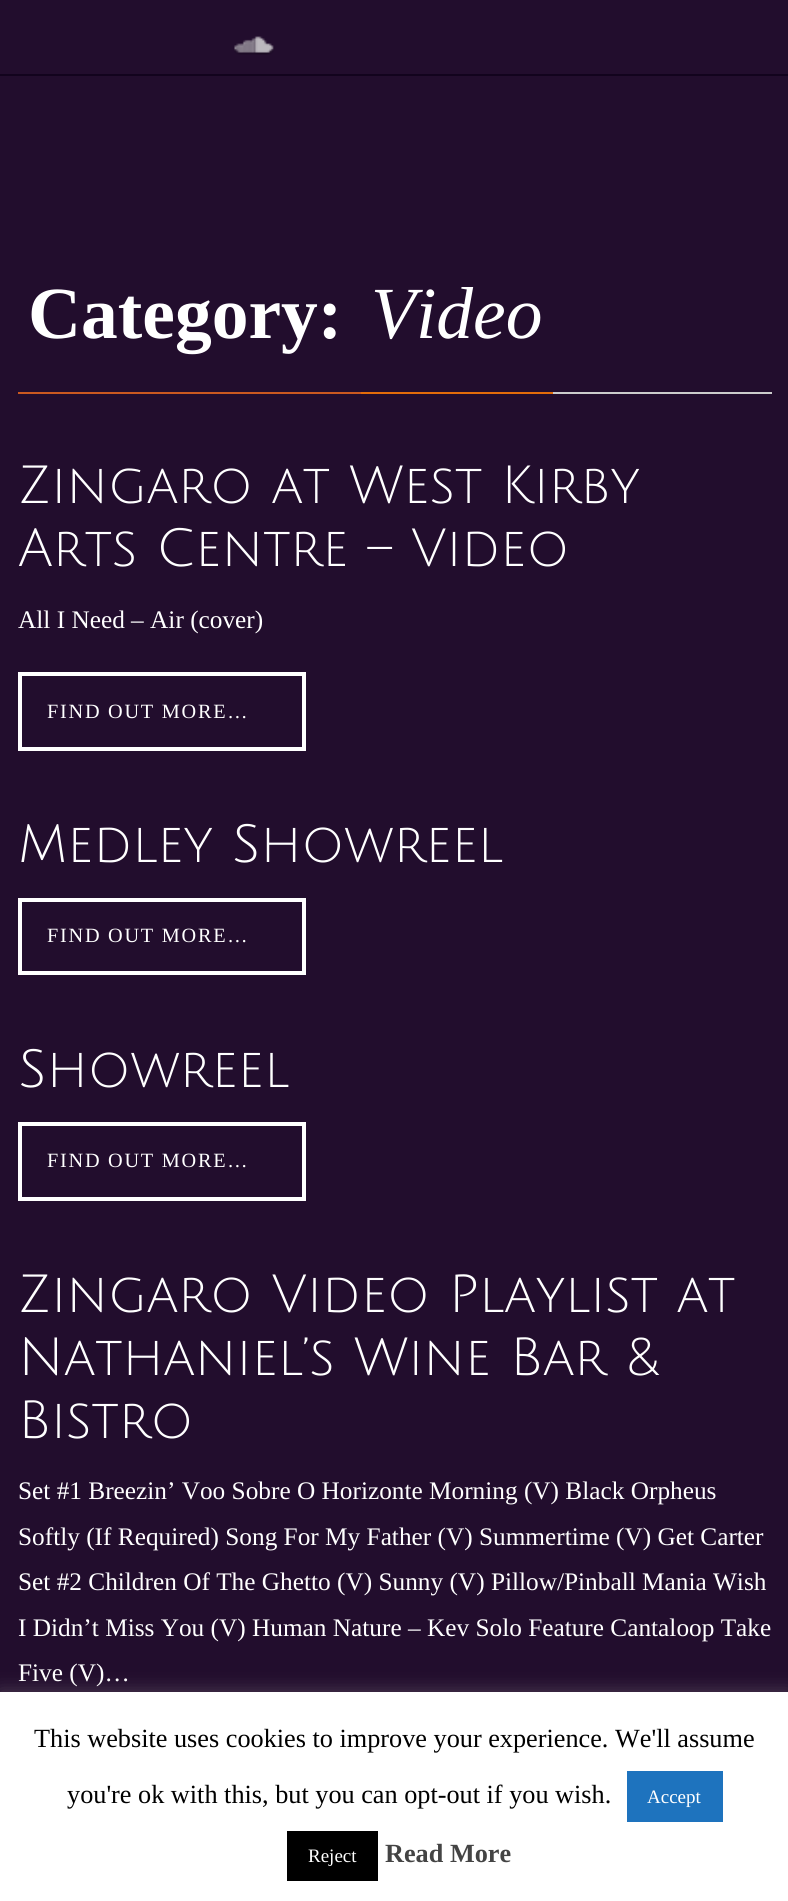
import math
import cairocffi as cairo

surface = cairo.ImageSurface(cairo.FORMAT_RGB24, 788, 1901)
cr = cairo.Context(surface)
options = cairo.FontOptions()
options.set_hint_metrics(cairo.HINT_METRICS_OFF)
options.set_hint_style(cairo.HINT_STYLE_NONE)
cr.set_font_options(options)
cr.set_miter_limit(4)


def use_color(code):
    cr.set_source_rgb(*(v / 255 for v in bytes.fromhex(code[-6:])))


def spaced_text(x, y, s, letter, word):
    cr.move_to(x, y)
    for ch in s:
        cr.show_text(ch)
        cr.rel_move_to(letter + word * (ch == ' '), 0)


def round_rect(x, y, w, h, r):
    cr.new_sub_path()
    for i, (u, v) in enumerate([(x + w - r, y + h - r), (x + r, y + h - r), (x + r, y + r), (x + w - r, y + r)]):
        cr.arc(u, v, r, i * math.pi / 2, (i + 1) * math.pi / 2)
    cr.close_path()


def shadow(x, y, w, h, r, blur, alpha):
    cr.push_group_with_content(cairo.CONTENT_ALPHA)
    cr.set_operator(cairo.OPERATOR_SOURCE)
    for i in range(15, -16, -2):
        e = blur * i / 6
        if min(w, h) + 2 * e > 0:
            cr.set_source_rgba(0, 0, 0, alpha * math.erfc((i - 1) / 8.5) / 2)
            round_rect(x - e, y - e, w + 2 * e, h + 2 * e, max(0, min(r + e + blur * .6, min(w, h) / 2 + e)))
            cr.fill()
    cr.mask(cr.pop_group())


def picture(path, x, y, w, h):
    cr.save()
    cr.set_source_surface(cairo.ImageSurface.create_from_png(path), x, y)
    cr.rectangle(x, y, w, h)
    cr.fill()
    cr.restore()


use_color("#220d2d")
cr.paint()
use_color("#12031d")
cr.rectangle(0, 74, 788, 2)
cr.fill()
picture("img1.png", 234, 36, 40, 19)
use_color("#cccccc")
cr.rectangle(553, 392, 219, 2)
cr.fill()
use_color("#cb5920")
cr.rectangle(18, 392, 343, 2)
cr.fill()
cr.select_font_face("Liberation Serif", cairo.FONT_SLANT_NORMAL, cairo.FONT_WEIGHT_BOLD)
cr.set_font_size(73.5)
use_color("#ffffff")
cr.move_to(28, 338)
cr.show_text("Category:")
use_color("#e36c0a")
cr.rectangle(361, 392, 192, 2)
cr.fill()
cr.select_font_face("Liberation Serif", cairo.FONT_SLANT_ITALIC)
use_color("#ffffff")
cr.move_to(371, 338)
cr.show_text("Video")
cr.select_font_face("Julius Sans One")
cr.set_font_size(52.5)
cr.move_to(18, 503)
cr.show_text("Zingaro at West Kirby")
cr.move_to(18, 566)
cr.show_text("Arts Centre – Video")
cr.select_font_face("Liberation Serif")
cr.set_font_size(25.3)
cr.move_to(18, 628)
cr.show_text("All I Need – Air (cover)")
cr.rectangle(20, 674, 284, 75)
cr.set_line_width(4)
cr.stroke()
cr.set_font_size(20.25)
spaced_text(47, 718, "FIND OUT MORE…", 1.75, 0)
cr.select_font_face("Julius Sans One")
cr.set_font_size(52.5)
cr.move_to(18, 862)
cr.show_text("Medley Showreel")
cr.rectangle(20, 900, 284, 73)
cr.stroke()
cr.select_font_face("Liberation Serif")
cr.set_font_size(20.25)
spaced_text(47, 942, "FIND OUT MORE…", 1.75, 0)
cr.select_font_face("Julius Sans One")
cr.set_font_size(52.5)
cr.move_to(18, 1087)
cr.show_text("Showreel")
cr.rectangle(20, 1124, 284, 75)
cr.stroke()
cr.select_font_face("Liberation Serif")
cr.set_font_size(20.25)
spaced_text(47, 1167, "FIND OUT MORE…", 1.75, 0)
cr.select_font_face("Julius Sans One")
cr.set_font_size(52.5)
cr.move_to(18, 1312)
cr.show_text("Zingaro Video Playlist at")
cr.move_to(18, 1375)
cr.show_text("Nathaniel’s Wine Bar &")
cr.move_to(18, 1438)
cr.show_text("Bistro")
cr.select_font_face("Liberation Serif")
cr.set_font_size(25.3)
cr.move_to(18, 1499)
cr.show_text("Set #1 Breezin’ Voo Sobre O Horizonte Morning (V) Black Orpheus")
cr.move_to(18, 1545)
cr.show_text("Softly (If Required) Song For My Father (V) Summertime (V) Get Carter")
cr.move_to(18, 1590)
cr.show_text("Set #2 Children Of The Ghetto (V) Sunny (V) Pillow/Pinball Mania Wish")
cr.move_to(18, 1636)
cr.show_text("I Didn’t Miss You (V) Human Nature – Kev Solo Feature Cantaloop Take")
cr.move_to(18, 1681)
cr.show_text("Five (V)…")
use_color("#acabab")
shadow(0, 1691, 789, 210, 0, 9, 0.3)
use_color("#ffffff")
cr.rectangle(0, 1692, 788, 209)
cr.fill()
cr.set_font_size(26.25)
use_color("#000000")
cr.move_to(34, 1747)
cr.show_text("This website uses cookies to improve your experience. We'll assume")
cr.move_to(67, 1803)
cr.show_text("you're ok with this, but you can opt-out if you wish.")
use_color("#1e73be")
cr.rectangle(627, 1771, 96, 51)
cr.fill()
cr.set_font_size(19)
use_color("#ffffff")
cr.move_to(647, 1803)
cr.show_text("Accept")
use_color("#000000")
cr.rectangle(287, 1831, 91, 50)
cr.fill()
use_color("#ffffff")
cr.move_to(308, 1862)
cr.show_text("Reject")
cr.select_font_face("Liberation Serif", cairo.FONT_SLANT_NORMAL, cairo.FONT_WEIGHT_BOLD)
cr.set_font_size(26.25)
use_color("#444444")
cr.move_to(385, 1862)
cr.show_text("Read More")
surface.write_to_png("result.png")
